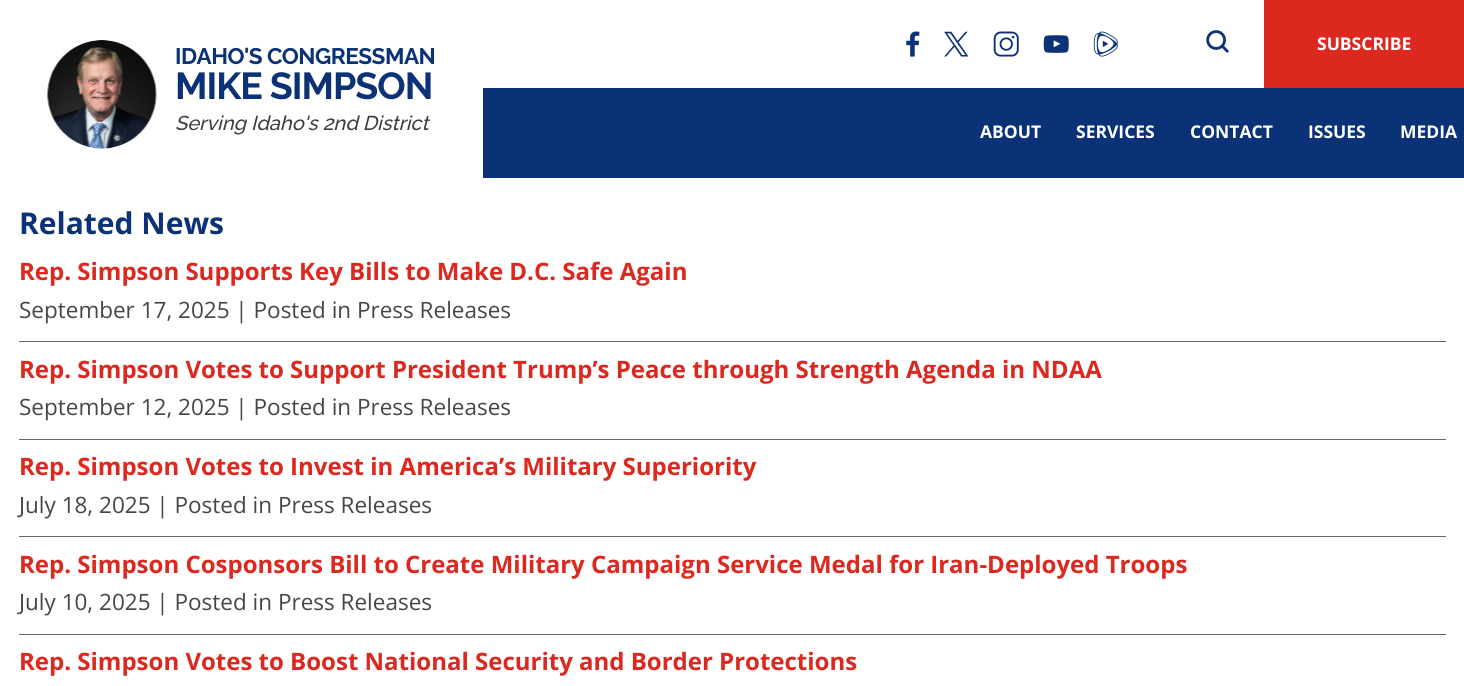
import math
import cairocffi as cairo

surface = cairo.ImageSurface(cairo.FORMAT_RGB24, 1464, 686)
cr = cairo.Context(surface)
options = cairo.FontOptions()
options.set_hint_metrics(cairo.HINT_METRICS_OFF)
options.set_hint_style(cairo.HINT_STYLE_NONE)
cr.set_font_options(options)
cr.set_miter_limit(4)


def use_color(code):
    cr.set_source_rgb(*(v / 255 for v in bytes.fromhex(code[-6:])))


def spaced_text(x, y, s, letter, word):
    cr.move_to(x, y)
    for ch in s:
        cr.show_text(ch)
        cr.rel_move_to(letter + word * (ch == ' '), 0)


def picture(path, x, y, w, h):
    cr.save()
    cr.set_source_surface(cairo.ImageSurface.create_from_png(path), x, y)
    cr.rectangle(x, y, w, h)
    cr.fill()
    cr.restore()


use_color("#ffffff")
cr.paint()
picture("img1.png", 906, 31, 14, 26)
picture("img2.png", 944, 31, 25, 26)
picture("img3.png", 993, 31, 26, 26)
picture("img4.png", 1043, 35, 26, 18)
picture("img5.png", 1093, 31, 25, 26)
picture("img6.png", 1206, 30, 23, 23)
use_color("#dc281e")
cr.rectangle(1264, 0, 200, 88)
cr.fill()
cr.select_font_face("Open Sans", cairo.FONT_SLANT_NORMAL, cairo.FONT_WEIGHT_BOLD)
cr.set_font_size(17.5)
use_color("#ffffff")
cr.move_to(1317, 50)
cr.show_text("SUBSCRIBE")
picture("img7.png", 47, 40, 110, 109)
cr.select_font_face("Raleway", cairo.FONT_SLANT_NORMAL, cairo.FONT_WEIGHT_BOLD)
cr.set_font_size(22.5)
use_color("#0b3177")
spaced_text(175, 64, "IDAHO'S CONGRESSMAN", -0.5, 0)
cr.set_font_size(37.5)
spaced_text(175, 99, "MIKE SIMPSON", -1, 0)
cr.select_font_face("Raleway Medium", cairo.FONT_SLANT_ITALIC)
cr.set_font_size(20)
use_color("#3c3c3c")
cr.move_to(175, 130)
cr.show_text("Serving Idaho's 2nd District")
use_color("#0b3177")
cr.rectangle(483, 88, 981, 90)
cr.fill()
cr.select_font_face("Open Sans", cairo.FONT_SLANT_NORMAL, cairo.FONT_WEIGHT_BOLD)
cr.set_font_size(17.5)
use_color("#ffffff")
cr.move_to(980, 138)
cr.show_text("ABOUT")
cr.move_to(1076, 138)
cr.show_text("SERVICES")
cr.move_to(1190, 138)
cr.show_text("CONTACT")
cr.move_to(1308, 138)
cr.show_text("ISSUES")
cr.move_to(1400, 138)
cr.show_text("MEDIA")
cr.set_font_size(30)
use_color("#0b3177")
cr.move_to(19, 234)
cr.show_text("Related News")
use_color("#666666")
cr.rectangle(19, 341, 1427, 1)
cr.fill()
cr.set_font_size(24)
use_color("#dc281e")
cr.move_to(19, 280)
cr.show_text("Rep. Simpson Supports Key Bills to Make D.C. Safe Again")
cr.select_font_face("Open Sans")
cr.set_font_size(22.5)
use_color("#434747")
cr.move_to(19, 318)
cr.show_text("September 17, 2025 | Posted in Press Releases")
use_color("#666666")
cr.rectangle(19, 439, 1427, 1)
cr.fill()
cr.select_font_face("Open Sans", cairo.FONT_SLANT_NORMAL, cairo.FONT_WEIGHT_BOLD)
cr.set_font_size(24)
use_color("#dc281e")
cr.move_to(19, 378)
cr.show_text("Rep. Simpson Votes to Support President Trump’s Peace through Strength Agenda in NDAA")
cr.select_font_face("Open Sans")
cr.set_font_size(22.5)
use_color("#434747")
cr.move_to(19, 415)
cr.show_text("September 12, 2025 | Posted in Press Releases")
use_color("#666666")
cr.rectangle(19, 536, 1427, 1)
cr.fill()
cr.select_font_face("Open Sans", cairo.FONT_SLANT_NORMAL, cairo.FONT_WEIGHT_BOLD)
cr.set_font_size(24)
use_color("#dc281e")
cr.move_to(19, 475)
cr.show_text("Rep. Simpson Votes to Invest in America’s Military Superiority")
cr.select_font_face("Open Sans")
cr.set_font_size(22.5)
use_color("#434747")
cr.move_to(19, 513)
cr.show_text("July 18, 2025 | Posted in Press Releases")
use_color("#666666")
cr.rectangle(19, 634, 1427, 1)
cr.fill()
cr.select_font_face("Open Sans", cairo.FONT_SLANT_NORMAL, cairo.FONT_WEIGHT_BOLD)
cr.set_font_size(24)
use_color("#dc281e")
cr.move_to(19, 573)
cr.show_text("Rep. Simpson Cosponsors Bill to Create Military Campaign Service Medal for Iran-Deployed Troops")
cr.select_font_face("Open Sans")
cr.set_font_size(22.5)
use_color("#434747")
cr.move_to(19, 610)
cr.show_text("July 10, 2025 | Posted in Press Releases")
cr.select_font_face("Open Sans", cairo.FONT_SLANT_NORMAL, cairo.FONT_WEIGHT_BOLD)
cr.set_font_size(24)
use_color("#dc281e")
cr.move_to(19, 670)
cr.show_text("Rep. Simpson Votes to Boost National Security and Border Protections")
surface.write_to_png("result.png")
